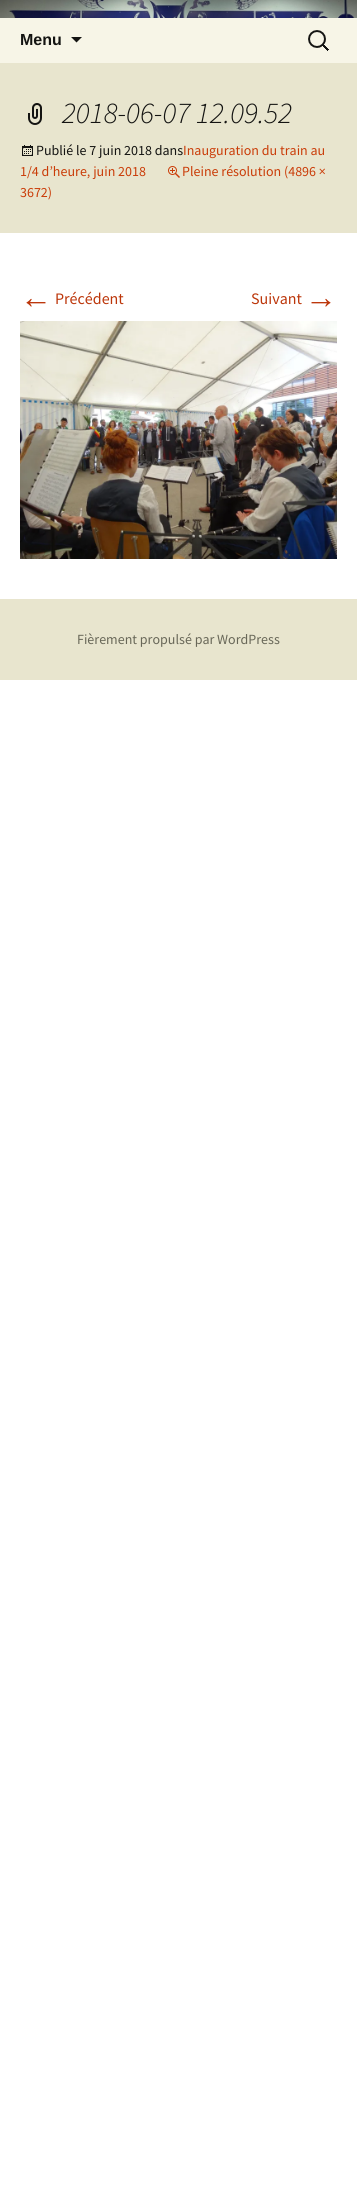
import math
import cairocffi as cairo

surface = cairo.ImageSurface(cairo.FORMAT_RGB24, 357, 2208)
cr = cairo.Context(surface)
options = cairo.FontOptions()
options.set_hint_metrics(cairo.HINT_METRICS_OFF)
options.set_hint_style(cairo.HINT_STYLE_NONE)
cr.set_font_options(options)
cr.set_miter_limit(4)


def use_color(code):
    cr.set_source_rgb(*(v / 255 for v in bytes.fromhex(code[-6:])))


def picture(path, x, y, w, h):
    cr.save()
    cr.set_source_surface(cairo.ImageSurface.create_from_png(path), x, y)
    cr.rectangle(x, y, w, h)
    cr.fill()
    cr.restore()


use_color("#ffffff")
cr.paint()
picture("img1.png", 0, 0, 357, 18)
use_color("#f7f5e7")
cr.rectangle(0, 18, 357, 45)
cr.fill()
cr.select_font_face("Liberation Sans", cairo.FONT_SLANT_NORMAL, cairo.FONT_WEIGHT_BOLD)
cr.set_font_size(16)
use_color("#141412")
cr.move_to(20, 45)
cr.show_text("Menu")
cr.new_path()
cr.move_to(71, 37)
cr.line_to(82, 37)
cr.line_to(76.5, 42.5)
cr.close_path()
cr.fill()
picture("img2.png", 308, 30, 21, 21)
use_color("#e8e5ce")
cr.rectangle(0, 63, 357, 170)
cr.fill()
picture("img3.png", 28, 103, 14, 22)
cr.select_font_face("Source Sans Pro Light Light", cairo.FONT_SLANT_ITALIC)
cr.set_font_size(30)
use_color("#141412")
cr.move_to(62, 123)
cr.show_text("2018-06-07 12.09.52")
picture("img4.png", 22, 145, 11, 11)
cr.select_font_face("Source Sans Pro")
cr.set_font_size(14)
cr.move_to(36, 155)
cr.show_text("Publié le 7 juin 2018 dans")
use_color("#ca3c08")
cr.move_to(183, 155)
cr.show_text("Inauguration du train au")
cr.move_to(20, 176)
cr.show_text("1/4 d’heure, juin 2018")
picture("img5.png", 168, 166, 12, 12)
cr.move_to(182, 176)
cr.show_text("Pleine résolution (4896 ×")
cr.move_to(20, 197)
cr.show_text("3672)")
cr.select_font_face("Liberation Sans")
cr.set_font_size(32)
use_color("#bc360a")
cr.move_to(20, 308)
cr.show_text("←")
cr.select_font_face("Source Sans Pro")
cr.set_font_size(16)
cr.move_to(55, 304)
cr.show_text("Précédent")
cr.move_to(251, 304)
cr.show_text("Suivant")
cr.select_font_face("Liberation Sans")
cr.set_font_size(32)
cr.move_to(305, 308)
cr.show_text("→")
picture("img6.png", 20, 321, 317, 238)
use_color("#e8e5ce")
cr.rectangle(0, 599, 357, 81)
cr.fill()
cr.select_font_face("Source Sans Pro")
cr.set_font_size(14)
use_color("#686758")
cr.move_to(77, 644)
cr.show_text("Fièrement propulsé par WordPress")
surface.write_to_png("result.png")
